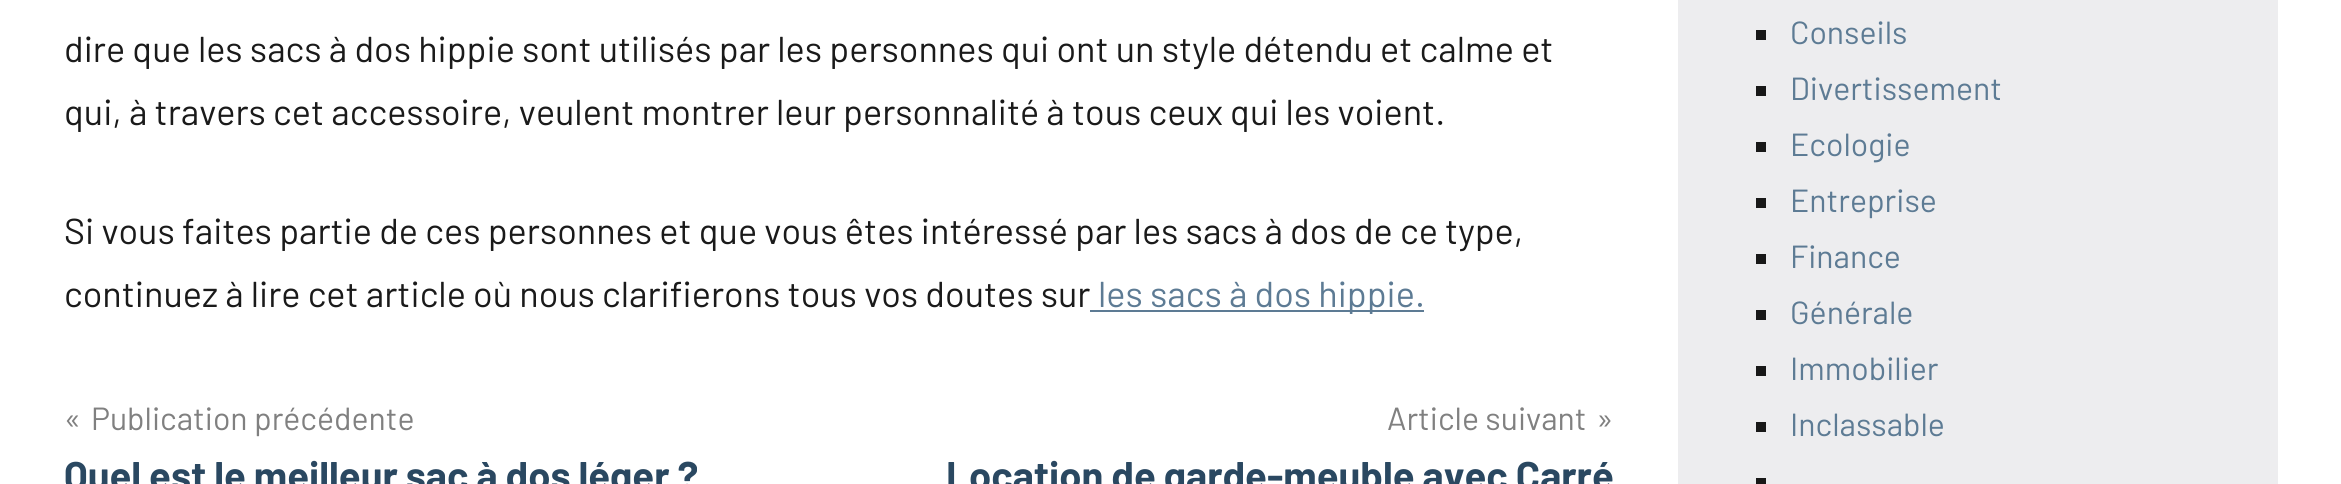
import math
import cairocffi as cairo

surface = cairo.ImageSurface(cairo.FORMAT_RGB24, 2341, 484)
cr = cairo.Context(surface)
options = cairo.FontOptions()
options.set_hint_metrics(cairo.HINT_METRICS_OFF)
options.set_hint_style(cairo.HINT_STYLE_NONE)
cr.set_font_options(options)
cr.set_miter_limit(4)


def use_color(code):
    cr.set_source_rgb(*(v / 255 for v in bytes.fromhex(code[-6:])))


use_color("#ffffff")
cr.paint()
cr.select_font_face("Barlow")
cr.set_font_size(36)
use_color("#1a1a1a")
cr.move_to(64, 62)
cr.show_text("dire que les sacs à dos hippie sont utilisés par les personnes qui ont un style détendu et calme et")
cr.move_to(64, 125)
cr.show_text("qui, à travers cet accessoire, veulent montrer leur personnalité à tous ceux qui les voient.")
cr.move_to(64, 244)
cr.show_text("Si vous faites partie de ces personnes et que vous êtes intéressé par les sacs à dos de ce type,")
cr.move_to(64, 307)
cr.show_text("continuez à lire cet article où nous clarifierons tous vos doutes sur")
use_color("#5d7b94")
cr.rectangle(1090, 310, 334, 2)
cr.fill()
cr.move_to(1098, 307)
cr.show_text("les sacs à dos hippie.")
cr.set_font_size(32)
use_color("#808080")
cr.move_to(64, 430)
cr.show_text("«")
cr.move_to(91, 430)
cr.show_text("Publication précédente")
cr.select_font_face("Barlow", cairo.FONT_SLANT_NORMAL, cairo.FONT_WEIGHT_BOLD)
cr.set_font_size(40)
use_color("#2a4861")
cr.move_to(64, 490)
cr.show_text("Quel est le meilleur sac à dos léger ?")
cr.select_font_face("Barlow")
cr.set_font_size(32)
use_color("#808080")
cr.move_to(1387, 430)
cr.show_text("Article suivant")
cr.move_to(1596, 430)
cr.show_text("»")
cr.select_font_face("Barlow", cairo.FONT_SLANT_NORMAL, cairo.FONT_WEIGHT_BOLD)
cr.set_font_size(40)
use_color("#2a4861")
cr.move_to(946, 490)
cr.show_text("Location de garde-meuble avec Carré")
use_color("#ededef")
cr.rectangle(1678, 0, 600, 484)
cr.fill()
use_color("#181818")
cr.rectangle(1756, 30, 10, 10)
cr.fill()
cr.select_font_face("Barlow")
cr.set_font_size(32)
use_color("#5d7b94")
cr.move_to(1790, 44)
cr.show_text("Conseils")
use_color("#181818")
cr.rectangle(1756, 86, 10, 10)
cr.fill()
use_color("#5d7b94")
cr.move_to(1790, 100)
cr.show_text("Divertissement")
use_color("#181818")
cr.rectangle(1756, 142, 10, 10)
cr.fill()
use_color("#5d7b94")
cr.move_to(1790, 156)
cr.show_text("Ecologie")
use_color("#181818")
cr.rectangle(1756, 198, 10, 10)
cr.fill()
use_color("#5d7b94")
cr.move_to(1790, 212)
cr.show_text("Entreprise")
use_color("#181818")
cr.rectangle(1756, 254, 10, 10)
cr.fill()
use_color("#5d7b94")
cr.move_to(1790, 268)
cr.show_text("Finance")
use_color("#181818")
cr.rectangle(1756, 310, 10, 10)
cr.fill()
use_color("#5d7b94")
cr.move_to(1790, 324)
cr.show_text("Générale")
use_color("#181818")
cr.rectangle(1756, 366, 10, 10)
cr.fill()
use_color("#5d7b94")
cr.move_to(1790, 380)
cr.show_text("Immobilier")
use_color("#181818")
cr.rectangle(1756, 422, 10, 10)
cr.fill()
use_color("#5d7b94")
cr.move_to(1790, 436)
cr.show_text("Inclassable")
use_color("#181818")
cr.rectangle(1756, 478, 10, 6)
cr.fill()
surface.write_to_png("result.png")
